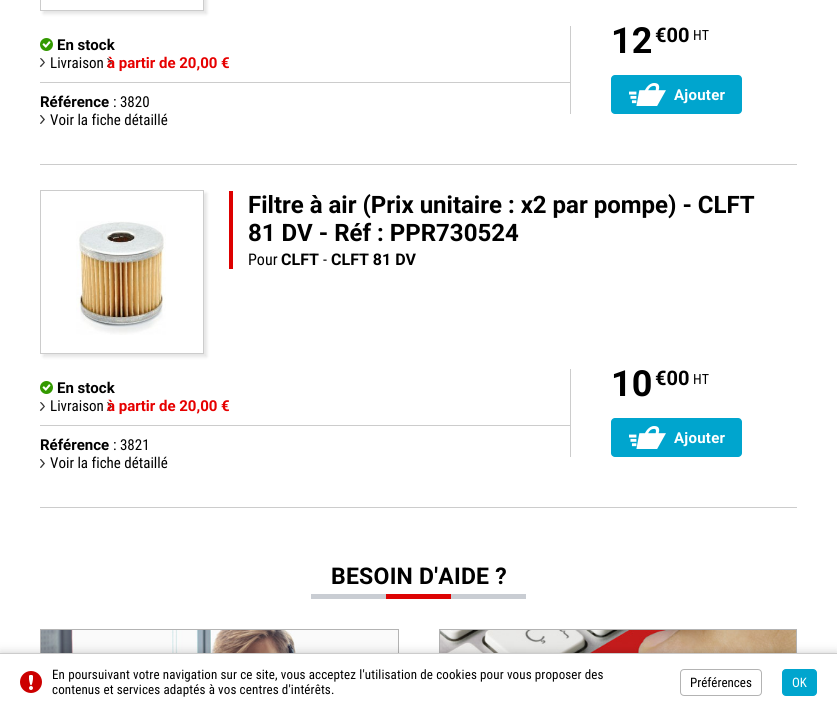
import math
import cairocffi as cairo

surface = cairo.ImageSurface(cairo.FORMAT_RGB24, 837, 710)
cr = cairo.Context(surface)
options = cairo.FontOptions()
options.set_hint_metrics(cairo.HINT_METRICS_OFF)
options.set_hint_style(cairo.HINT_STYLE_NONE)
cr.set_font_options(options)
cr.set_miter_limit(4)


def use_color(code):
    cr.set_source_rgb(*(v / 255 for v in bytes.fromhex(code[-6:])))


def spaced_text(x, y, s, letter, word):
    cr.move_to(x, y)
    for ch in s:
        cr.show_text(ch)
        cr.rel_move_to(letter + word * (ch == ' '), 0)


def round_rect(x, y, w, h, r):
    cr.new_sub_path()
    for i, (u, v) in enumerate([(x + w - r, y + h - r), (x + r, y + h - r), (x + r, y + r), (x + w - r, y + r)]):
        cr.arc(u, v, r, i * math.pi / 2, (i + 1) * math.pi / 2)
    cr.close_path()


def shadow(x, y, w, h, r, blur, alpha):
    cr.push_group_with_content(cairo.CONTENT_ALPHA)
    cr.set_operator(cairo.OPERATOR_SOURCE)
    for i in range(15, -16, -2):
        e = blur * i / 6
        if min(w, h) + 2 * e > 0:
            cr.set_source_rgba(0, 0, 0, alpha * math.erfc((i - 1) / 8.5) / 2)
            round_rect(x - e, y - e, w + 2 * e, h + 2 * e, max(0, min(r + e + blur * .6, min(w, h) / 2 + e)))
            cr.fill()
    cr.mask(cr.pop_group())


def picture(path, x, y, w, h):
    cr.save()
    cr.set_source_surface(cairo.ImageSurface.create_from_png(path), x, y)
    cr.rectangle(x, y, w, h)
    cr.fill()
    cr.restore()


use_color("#ffffff")
cr.paint()
use_color("#cccccc")
cr.rectangle(40, 164, 757, 1)
cr.fill()
cr.save()
cr.set_fill_rule(cairo.FILL_RULE_EVEN_ODD)
cr.new_path()
cr.move_to(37, 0)
cr.line_to(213, 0)
cr.line_to(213, 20)
cr.line_to(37, 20)
cr.close_path()
cr.move_to(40, -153)
cr.line_to(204, -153)
cr.line_to(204, 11)
cr.line_to(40, 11)
cr.close_path()
cr.clip()
use_color("#000000")
shadow(43, -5, 164, 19, 0, 1.5, 0.1)
cr.restore()
cr.rectangle(40.5, -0.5, 163, 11)
cr.set_line_width(1)
cr.stroke()
cr.rectangle(40, 82, 530, 1)
cr.fill()
picture("img1.png", 40, 38, 13, 13)
cr.select_font_face("Roboto", cairo.FONT_SLANT_NORMAL, cairo.FONT_WEIGHT_BOLD)
cr.set_font_size(15)
use_color("#000000")
cr.move_to(57, 50)
cr.show_text("En stock")
cr.select_font_face("Roboto Condensed")
cr.move_to(50, 68)
cr.show_text("Livraison")
use_color("#333333")
cr.set_fill_rule(cairo.FILL_RULE_EVEN_ODD)
cr.new_path()
cr.move_to(40, 66)
cr.line_to(43.5, 62.5)
cr.line_to(40, 58.5)
cr.curve_to(41, 56.5, 44.5, 62, 45, 62.5)
cr.line_to(41, 67)
cr.curve_to(40.5, 67, 39.5, 66.5, 40, 66)
cr.close_path()
cr.fill()
cr.new_path()
cr.move_to(107, 66)
cr.line_to(110.5, 62.5)
cr.line_to(107, 58.5)
cr.curve_to(108, 56.5, 111.5, 62, 112, 62.5)
cr.line_to(108, 67)
cr.curve_to(107.5, 67, 106.5, 66.5, 107, 66)
cr.close_path()
cr.fill()
cr.select_font_face("Roboto", cairo.FONT_SLANT_NORMAL, cairo.FONT_WEIGHT_BOLD)
use_color("#e60000")
cr.move_to(107, 68)
cr.show_text("à partir de 20,00 €")
use_color("#000000")
cr.move_to(40, 107)
cr.show_text("Référence")
cr.select_font_face("Roboto Condensed")
cr.move_to(113, 107)
cr.show_text(": 3820")
picture("img2.png", 40, 115, 5, 9)
cr.move_to(50, 125)
cr.show_text("Voir la fiche détaillé")
use_color("#cccccc")
cr.rectangle(570, 26, 1, 88)
cr.fill()
cr.select_font_face("Roboto", cairo.FONT_SLANT_NORMAL, cairo.FONT_WEIGHT_BOLD)
cr.set_font_size(36)
use_color("#000000")
cr.move_to(611, 53)
cr.show_text("12")
cr.set_font_size(20)
cr.move_to(655, 42)
cr.show_text("€00")
cr.select_font_face("Roboto Condensed")
cr.set_font_size(14)
cr.move_to(693, 40)
cr.show_text("HT")
use_color("#00a5ce")
round_rect(611, 75, 131, 39, 4)
cr.fill()
picture("img3.png", 629, 83, 37, 23)
cr.select_font_face("Roboto", cairo.FONT_SLANT_NORMAL, cairo.FONT_WEIGHT_BOLD)
cr.set_font_size(15)
use_color("#ffffff")
spaced_text(674, 100, "Ajouter", 0.25, 0)
use_color("#cccccc")
cr.rectangle(40, 507, 757, 1)
cr.fill()
cr.save()
cr.new_path()
cr.move_to(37, 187)
cr.line_to(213, 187)
cr.line_to(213, 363)
cr.line_to(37, 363)
cr.close_path()
cr.move_to(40, 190)
cr.line_to(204, 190)
cr.line_to(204, 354)
cr.line_to(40, 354)
cr.close_path()
cr.clip()
use_color("#000000")
shadow(43, 193, 164, 164, 0, 1.5, 0.1)
cr.restore()
cr.rectangle(40.5, 190.5, 163, 163)
cr.stroke()
picture("img4.png", 76, 221, 90, 114)
use_color("#dd0000")
cr.rectangle(229, 191, 4, 78)
cr.fill()
cr.set_font_size(24)
use_color("#000000")
cr.move_to(248, 213)
cr.show_text("Filtre à air (Prix unitaire : x2 par pompe) - CLFT")
cr.move_to(248, 241)
cr.show_text("81 DV - Réf : PPR730524")
cr.select_font_face("Roboto Condensed")
cr.set_font_size(16)
cr.move_to(248, 265)
cr.show_text("Pour")
cr.select_font_face("Roboto", cairo.FONT_SLANT_NORMAL, cairo.FONT_WEIGHT_BOLD)
cr.move_to(281, 265)
cr.show_text("CLFT")
cr.select_font_face("Roboto Condensed")
cr.move_to(323, 265)
cr.show_text("-")
cr.select_font_face("Roboto", cairo.FONT_SLANT_NORMAL, cairo.FONT_WEIGHT_BOLD)
cr.move_to(331, 265)
cr.show_text("CLFT 81 DV")
use_color("#cccccc")
cr.rectangle(40, 425, 530, 1)
cr.fill()
picture("img1.png", 40, 381, 13, 13)
cr.set_font_size(15)
use_color("#000000")
cr.move_to(57, 393)
cr.show_text("En stock")
cr.select_font_face("Roboto Condensed")
cr.move_to(50, 411)
cr.show_text("Livraison")
use_color("#333333")
cr.new_path()
cr.move_to(40, 410)
cr.line_to(43.5, 406.5)
cr.line_to(40, 402.5)
cr.curve_to(41, 400.5, 44.5, 406, 45, 406.5)
cr.line_to(41, 411)
cr.curve_to(40.5, 411, 39.5, 410.5, 40, 410)
cr.close_path()
cr.fill()
cr.new_path()
cr.move_to(107, 410)
cr.line_to(110.5, 406.5)
cr.line_to(107, 402.5)
cr.curve_to(108, 400.5, 111.5, 406, 112, 406.5)
cr.line_to(108, 411)
cr.curve_to(107.5, 411, 106.5, 410.5, 107, 410)
cr.close_path()
cr.fill()
cr.select_font_face("Roboto", cairo.FONT_SLANT_NORMAL, cairo.FONT_WEIGHT_BOLD)
use_color("#e60000")
cr.move_to(107, 411)
cr.show_text("à partir de 20,00 €")
use_color("#000000")
cr.move_to(40, 450)
cr.show_text("Référence")
cr.select_font_face("Roboto Condensed")
cr.move_to(113, 450)
cr.show_text(": 3821")
picture("img2.png", 40, 459, 5, 9)
cr.move_to(50, 468)
cr.show_text("Voir la fiche détaillé")
use_color("#cccccc")
cr.rectangle(570, 369, 1, 88)
cr.fill()
cr.select_font_face("Roboto", cairo.FONT_SLANT_NORMAL, cairo.FONT_WEIGHT_BOLD)
cr.set_font_size(36)
use_color("#000000")
cr.move_to(611, 396)
cr.show_text("10")
cr.set_font_size(20)
cr.move_to(655, 385)
cr.show_text("€00")
cr.select_font_face("Roboto Condensed")
cr.set_font_size(14)
cr.move_to(693, 384)
cr.show_text("HT")
use_color("#00a5ce")
round_rect(611, 418, 131, 39, 4)
cr.fill()
picture("img3.png", 629, 426, 37, 23)
cr.select_font_face("Roboto", cairo.FONT_SLANT_NORMAL, cairo.FONT_WEIGHT_BOLD)
cr.set_font_size(15)
use_color("#ffffff")
spaced_text(674, 443, "Ajouter", 0.25, 0)
cr.set_font_size(23)
use_color("#000000")
spaced_text(331, 584, "BESOIN D'AIDE ?", 0.25, 0)
use_color("#c9cdd3")
cr.rectangle(311, 594, 215, 5)
cr.fill()
use_color("#dd0303")
cr.rectangle(386, 594, 65, 5)
cr.fill()
cr.rectangle(40.5, 629.5, 358, 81)
use_color("#b3b3b3")
cr.stroke()
picture("img5.png", 41, 630, 357, 23)
cr.rectangle(439.5, 629.5, 357, 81)
cr.stroke()
picture("img6.png", 440, 630, 356, 23)
use_color("#000000")
shadow(0, 653, 837, 57, 0, 5, 0.2)
use_color("#ffffff")
cr.rectangle(0, 654, 837, 56)
cr.fill()
use_color("#cccccc")
cr.rectangle(0, 653, 837, 1)
cr.fill()
picture("img7.png", 20, 671, 22, 22)
cr.select_font_face("Roboto Condensed")
cr.set_font_size(13)
use_color("#000000")
spaced_text(52, 679, "En poursuivant votre navigation sur ce site, vous acceptez l'utilisation de cookies pour vous proposer des", 0.13, 0)
spaced_text(52, 694, "contenus et services adaptés à vos centres d'intérêts.", 0.13, 0)
round_rect(680.5, 669.5, 81, 26, 3.5)
use_color("#b3b3b3")
cr.stroke()
use_color("#000000")
cr.move_to(690, 687)
cr.show_text("Préférences")
use_color("#00a5ce")
round_rect(782.5, 669.5, 34, 26, 3.5)
cr.fill_preserve()
cr.stroke()
use_color("#ffffff")
cr.move_to(792, 687)
cr.show_text("OK")
surface.write_to_png("result.png")
